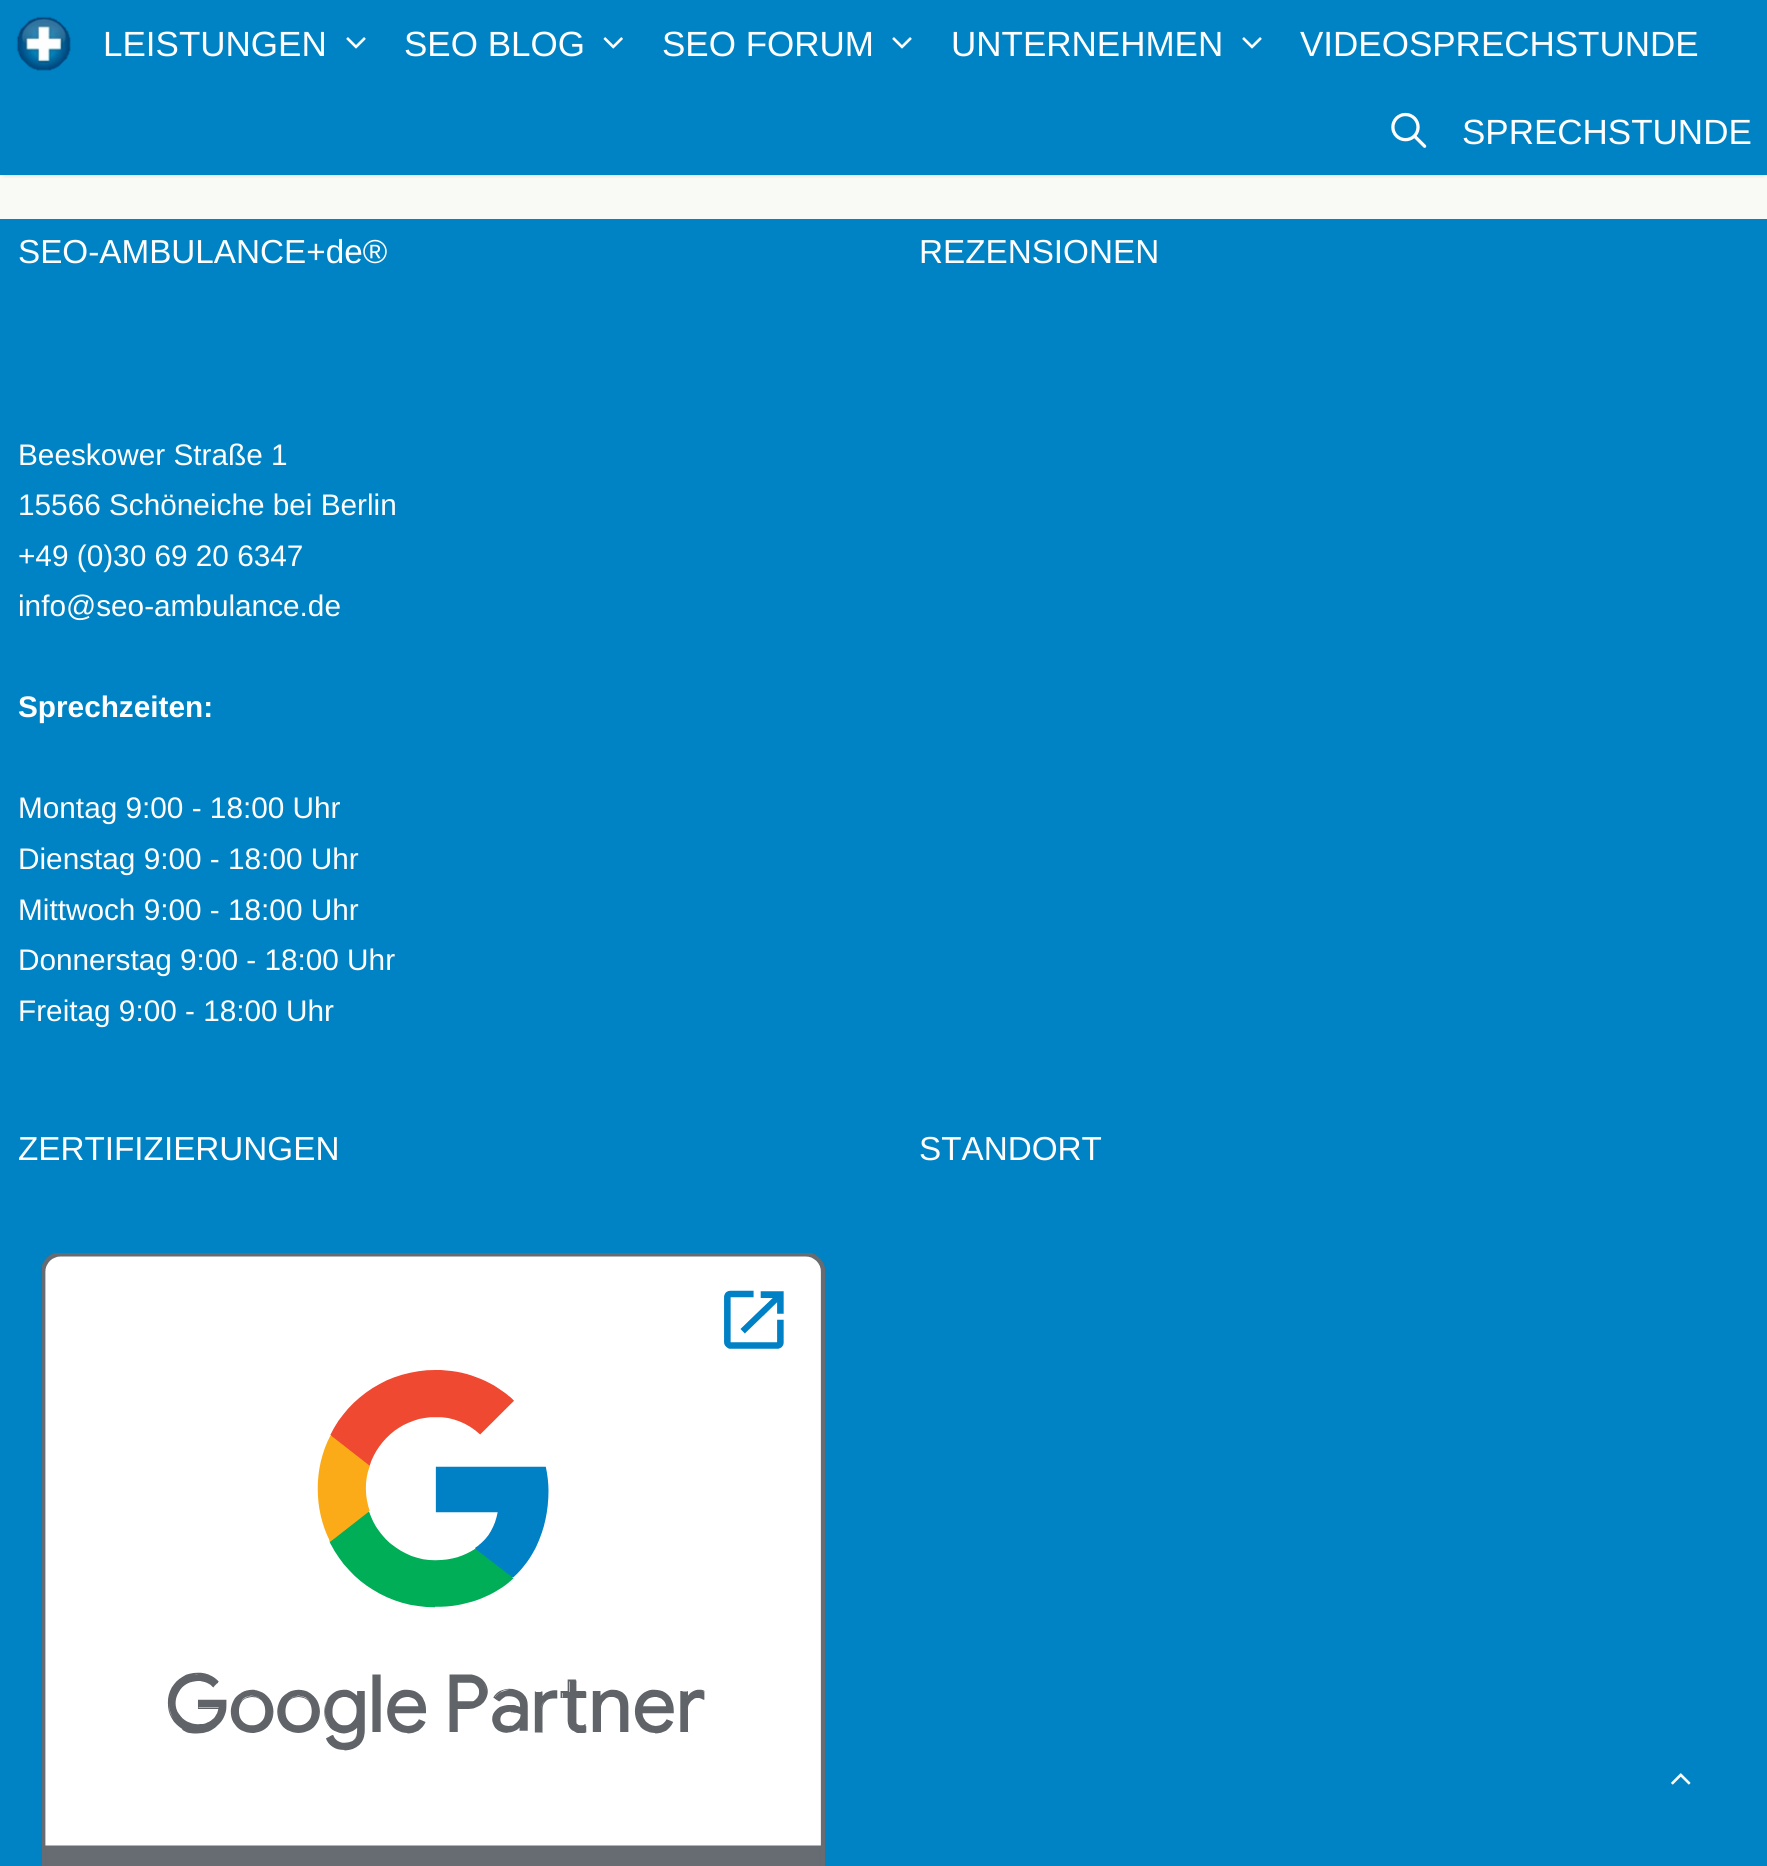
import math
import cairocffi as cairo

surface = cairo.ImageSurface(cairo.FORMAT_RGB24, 1767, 1866)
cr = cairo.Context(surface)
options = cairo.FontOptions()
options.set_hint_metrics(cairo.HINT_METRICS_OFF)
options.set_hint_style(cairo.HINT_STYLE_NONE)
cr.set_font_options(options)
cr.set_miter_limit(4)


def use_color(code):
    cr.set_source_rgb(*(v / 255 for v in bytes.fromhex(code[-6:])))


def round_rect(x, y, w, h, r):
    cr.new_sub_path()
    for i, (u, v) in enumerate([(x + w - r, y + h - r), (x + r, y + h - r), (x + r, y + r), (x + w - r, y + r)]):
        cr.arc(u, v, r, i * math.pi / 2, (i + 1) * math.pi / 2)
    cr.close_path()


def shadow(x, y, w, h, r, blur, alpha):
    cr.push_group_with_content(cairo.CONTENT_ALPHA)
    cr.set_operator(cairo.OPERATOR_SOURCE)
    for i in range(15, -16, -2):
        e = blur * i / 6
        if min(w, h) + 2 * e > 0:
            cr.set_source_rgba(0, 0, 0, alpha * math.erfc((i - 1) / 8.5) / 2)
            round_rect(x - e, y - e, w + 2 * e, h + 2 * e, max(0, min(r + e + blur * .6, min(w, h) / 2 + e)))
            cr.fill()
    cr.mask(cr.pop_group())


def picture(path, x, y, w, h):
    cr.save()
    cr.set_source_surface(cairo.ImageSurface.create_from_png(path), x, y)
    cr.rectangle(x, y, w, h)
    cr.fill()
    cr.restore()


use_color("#f9f9f6")
cr.paint()
use_color("#000000")
shadow(4, 7, 1760, 168, 0, 2, 0.2)
use_color("#0083c5")
cr.rectangle(0, 0, 1767, 175)
cr.fill()
picture("img1.png", 16, 16, 55, 55)
cr.select_font_face("Liberation Sans")
cr.set_font_size(35)
use_color("#ffffff")
cr.move_to(103, 56)
cr.show_text("LEISTUNGEN")
picture("img2.png", 346, 37, 20, 12)
cr.move_to(404, 56)
cr.show_text("SEO BLOG")
picture("img3.png", 603, 37, 20, 12)
cr.move_to(662, 56)
cr.show_text("SEO FORUM")
picture("img2.png", 892, 37, 20, 12)
cr.move_to(951, 56)
cr.show_text("UNTERNEHMEN")
picture("img2.png", 1242, 37, 20, 12)
cr.move_to(1300, 56)
cr.show_text("VIDEOSPRECHSTUNDE")
picture("img4.png", 1391, 112, 36, 36)
cr.move_to(1462, 144)
cr.show_text("SPRECHSTUNDE")
use_color("#0083c5")
cr.rectangle(0, 219, 1767, 1647)
cr.fill()
cr.set_font_size(33.25)
use_color("#ffffff")
cr.move_to(18, 263)
cr.show_text("SEO-AMBULANCE+de®")
cr.set_font_size(29.75)
cr.move_to(18, 465)
cr.show_text("Beeskower Straße 1")
cr.move_to(18, 515)
cr.show_text("15566 Schöneiche bei Berlin")
cr.move_to(18, 566)
cr.show_text("+49 (0)30 69 20 6347")
cr.move_to(18, 616)
cr.show_text("info@seo-ambulance.de")
cr.select_font_face("Liberation Sans", cairo.FONT_SLANT_NORMAL, cairo.FONT_WEIGHT_BOLD)
cr.move_to(18, 717)
cr.show_text("Sprechzeiten:")
cr.select_font_face("Liberation Sans")
cr.move_to(18, 818)
cr.show_text("Montag 9:00 - 18:00 Uhr")
cr.move_to(18, 869)
cr.show_text("Dienstag 9:00 - 18:00 Uhr")
cr.move_to(18, 920)
cr.show_text("Mittwoch 9:00 - 18:00 Uhr")
cr.move_to(18, 970)
cr.show_text("Donnerstag 9:00 - 18:00 Uhr")
cr.move_to(18, 1021)
cr.show_text("Freitag 9:00 - 18:00 Uhr")
cr.set_font_size(33.25)
cr.move_to(919, 263)
cr.show_text("REZENSIONEN")
cr.move_to(18, 1160)
cr.show_text("ZERTIFIZIERUNGEN")
picture("img5.png", 42, 1253, 783, 613)
cr.move_to(919, 1160)
cr.show_text("STANDORT")
picture("img6.png", 1671, 1773, 20, 12)
surface.write_to_png("result.png")
